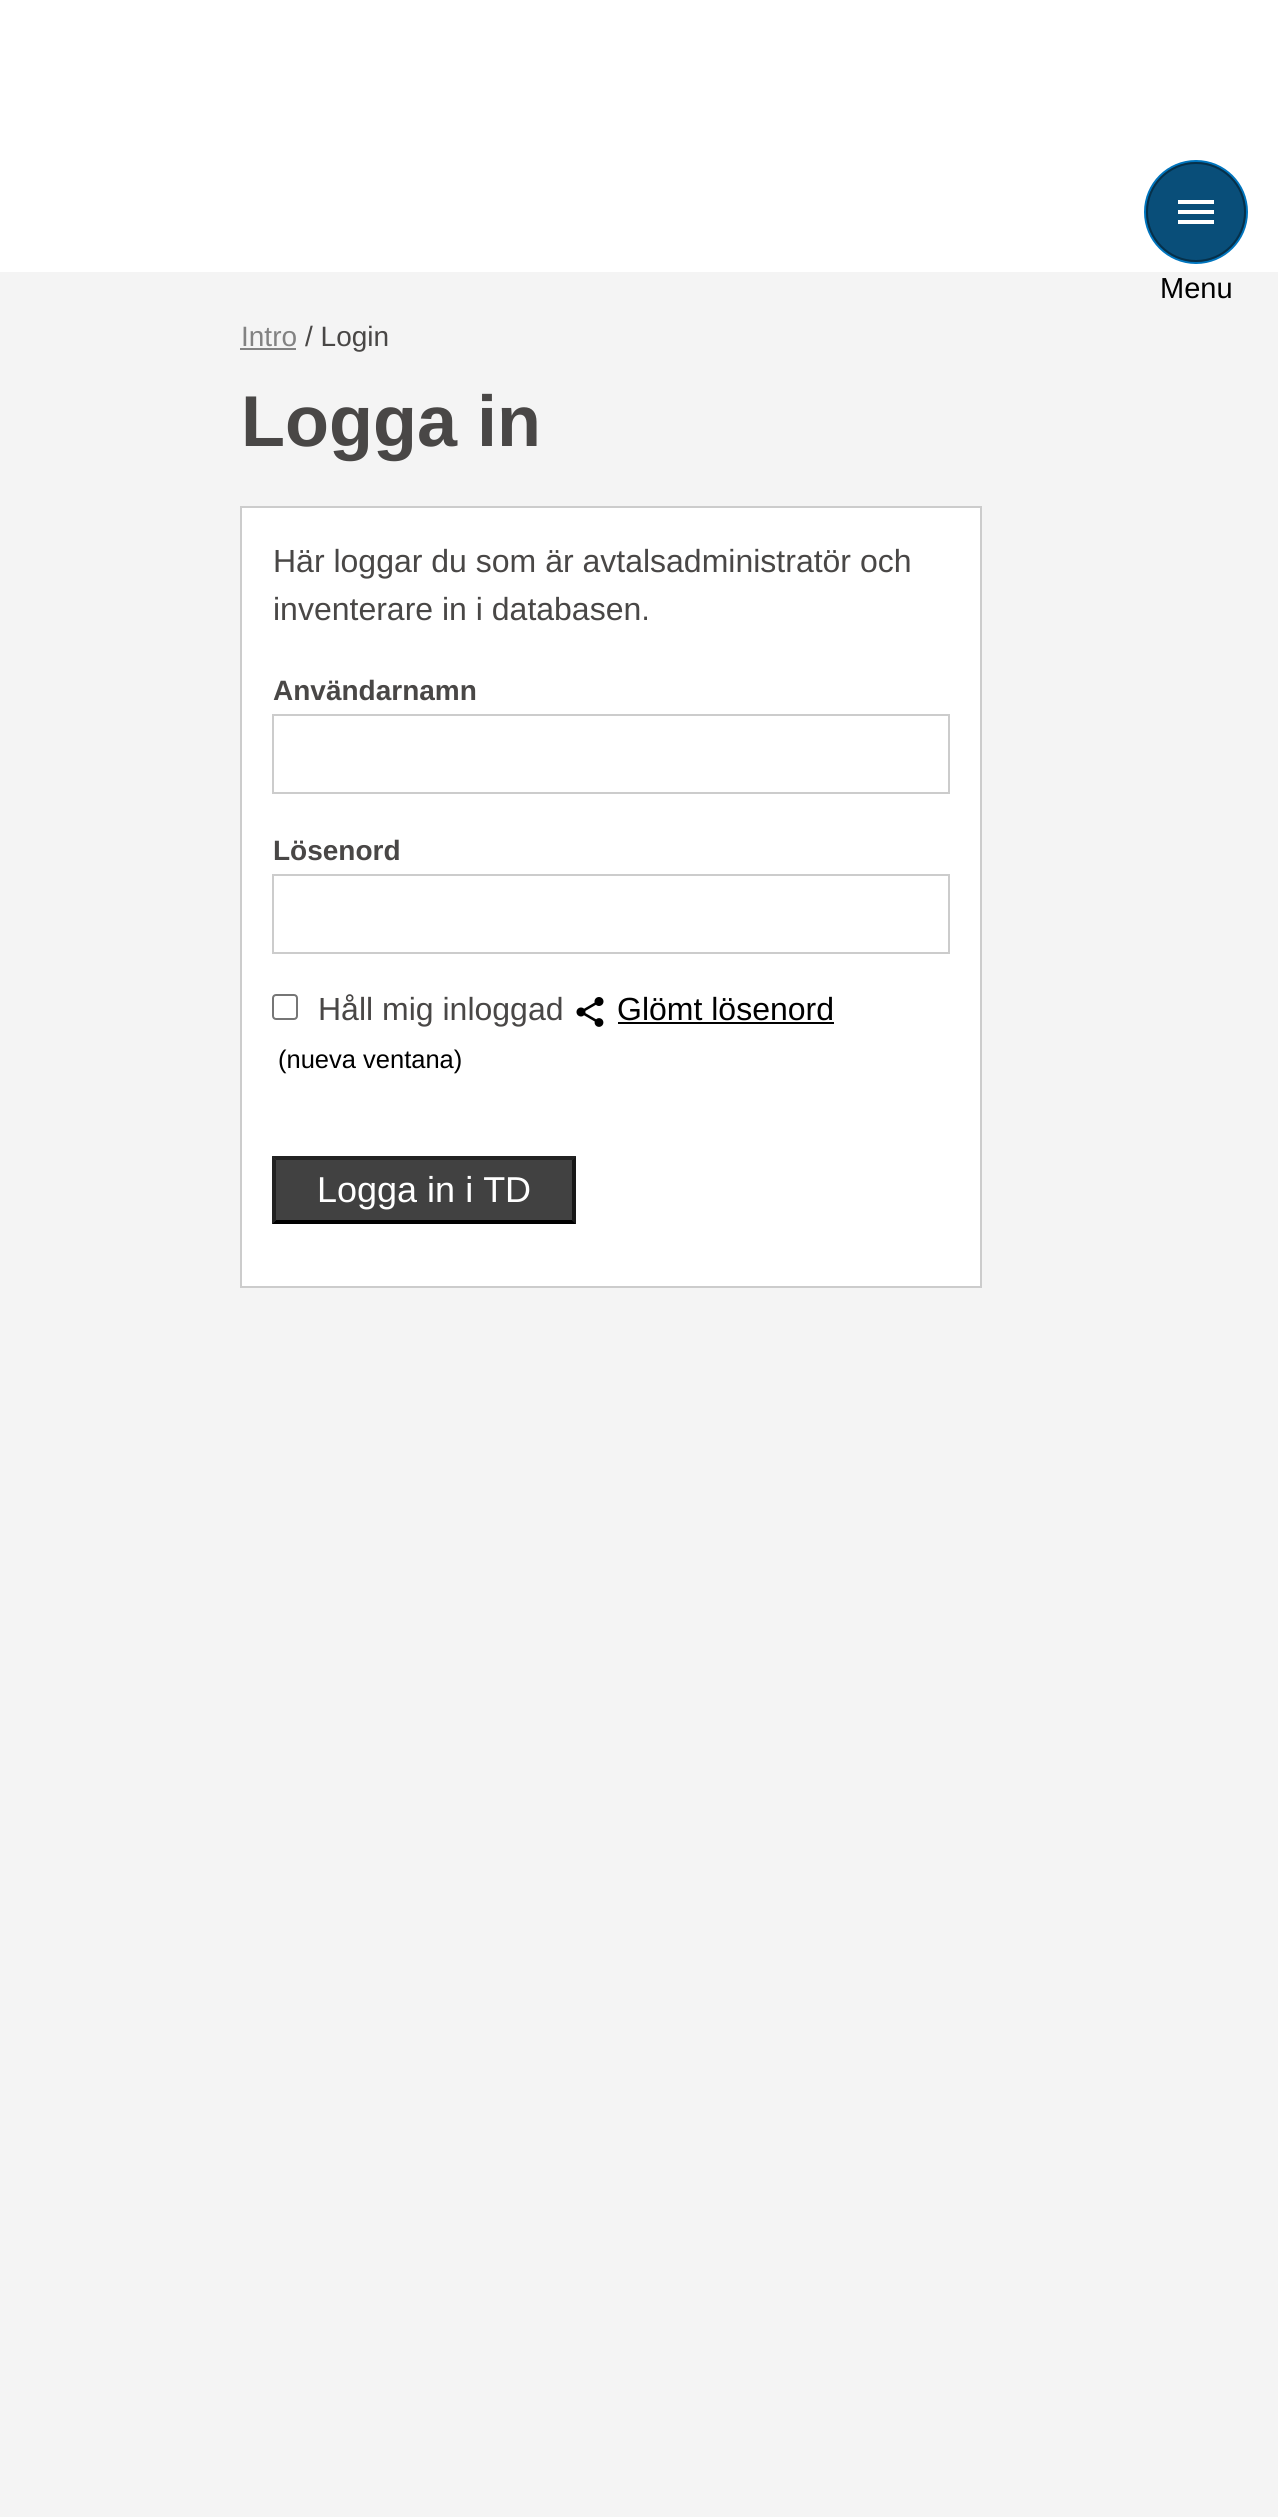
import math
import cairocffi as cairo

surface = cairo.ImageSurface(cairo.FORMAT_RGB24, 1278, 2517)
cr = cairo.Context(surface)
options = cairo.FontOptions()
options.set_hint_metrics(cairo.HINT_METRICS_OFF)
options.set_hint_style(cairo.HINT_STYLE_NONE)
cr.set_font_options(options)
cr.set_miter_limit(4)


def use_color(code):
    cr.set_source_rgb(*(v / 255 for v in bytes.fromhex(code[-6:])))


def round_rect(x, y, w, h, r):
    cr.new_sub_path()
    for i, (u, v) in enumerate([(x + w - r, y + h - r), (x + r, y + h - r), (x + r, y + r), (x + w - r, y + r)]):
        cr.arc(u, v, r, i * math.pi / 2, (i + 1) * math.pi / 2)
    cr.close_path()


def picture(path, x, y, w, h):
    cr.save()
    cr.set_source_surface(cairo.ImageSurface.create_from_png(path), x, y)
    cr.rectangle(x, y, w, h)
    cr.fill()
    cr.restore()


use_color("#f4f4f4")
cr.paint()
use_color("#ffffff")
cr.rectangle(0, 0, 1278, 272)
cr.fill()
use_color("#094e79")
cr.arc(1196, 212, 51, 0, 2 * math.pi)
cr.fill_preserve()
use_color("#0075be")
cr.stroke()
cr.arc(1196, 212, 49, 0, 2 * math.pi)
use_color("#06304a")
cr.stroke()
use_color("#ffffff")
cr.new_path()
cr.move_to(1178, 224)
cr.line_to(1214, 224)
cr.line_to(1214, 220)
cr.line_to(1178, 220)
cr.close_path()
cr.move_to(1178, 214)
cr.line_to(1214, 214)
cr.line_to(1214, 210)
cr.line_to(1178, 210)
cr.close_path()
cr.move_to(1178, 200)
cr.line_to(1178, 204)
cr.line_to(1214, 204)
cr.line_to(1214, 200)
cr.close_path()
cr.fill()
cr.select_font_face("Liberation Sans")
cr.set_font_size(29)
use_color("#000000")
cr.move_to(1160, 298)
cr.show_text("Menu")
cr.set_font_size(28)
use_color("#828282")
cr.move_to(241, 346)
cr.show_text("Intro")
cr.rectangle(240, 348, 56, 2)
cr.fill()
use_color("#494746")
cr.move_to(305, 346)
cr.show_text("/ Login")
cr.select_font_face("Liberation Sans", cairo.FONT_SLANT_NORMAL, cairo.FONT_WEIGHT_BOLD)
cr.set_font_size(72)
cr.move_to(241, 446)
cr.show_text("Logga in")
use_color("#ffffff")
cr.rectangle(241, 507, 740, 780)
cr.fill_preserve()
use_color("#cccccc")
cr.stroke()
cr.select_font_face("Liberation Sans")
cr.set_font_size(32)
use_color("#494746")
cr.move_to(273, 572)
cr.show_text("Här loggar du som är avtalsadministratör och")
cr.move_to(273, 620)
cr.show_text("inventerare in i databasen.")
cr.select_font_face("Liberation Sans", cairo.FONT_SLANT_NORMAL, cairo.FONT_WEIGHT_BOLD)
cr.set_font_size(28)
cr.move_to(273, 700)
cr.show_text("Användarnamn")
cr.rectangle(273, 715, 676, 78)
use_color("#cccccc")
cr.stroke()
use_color("#494746")
cr.move_to(273, 860)
cr.show_text("Lösenord")
cr.rectangle(273, 875, 676, 78)
use_color("#cccccc")
cr.stroke()
round_rect(273, 995, 24, 24, 3)
use_color("#767676")
cr.stroke()
cr.select_font_face("Liberation Sans")
cr.set_font_size(32)
use_color("#494746")
cr.move_to(318, 1020)
cr.show_text("Håll mig inloggad")
use_color("#000000")
cr.move_to(617, 1020)
cr.show_text("Glömt lösenord")
cr.rectangle(618, 1022, 216, 2)
cr.fill()
cr.set_font_size(25.5)
cr.move_to(278, 1068)
cr.show_text("(nueva ventana)")
picture("img1.png", 576, 997, 28, 30)
use_color("#414141")
cr.rectangle(272, 1156, 304, 68)
cr.fill()
use_color("#222222")
cr.new_path()
cr.move_to(272, 1156)
cr.line_to(576, 1156)
cr.line_to(572, 1160)
cr.line_to(276, 1160)
cr.close_path()
cr.fill()
use_color("#171717")
cr.new_path()
cr.move_to(576, 1156)
cr.line_to(576, 1224)
cr.line_to(572, 1220)
cr.line_to(572, 1160)
cr.close_path()
cr.fill()
use_color("#000000")
cr.new_path()
cr.move_to(576, 1224)
cr.line_to(272, 1224)
cr.line_to(276, 1220)
cr.line_to(572, 1220)
cr.close_path()
cr.fill()
use_color("#222222")
cr.new_path()
cr.move_to(272, 1224)
cr.line_to(272, 1156)
cr.line_to(276, 1160)
cr.line_to(276, 1220)
cr.close_path()
cr.fill()
cr.set_font_size(36)
use_color("#ffffff")
cr.move_to(317, 1202)
cr.show_text("Logga in i TD")
surface.write_to_png("result.png")
